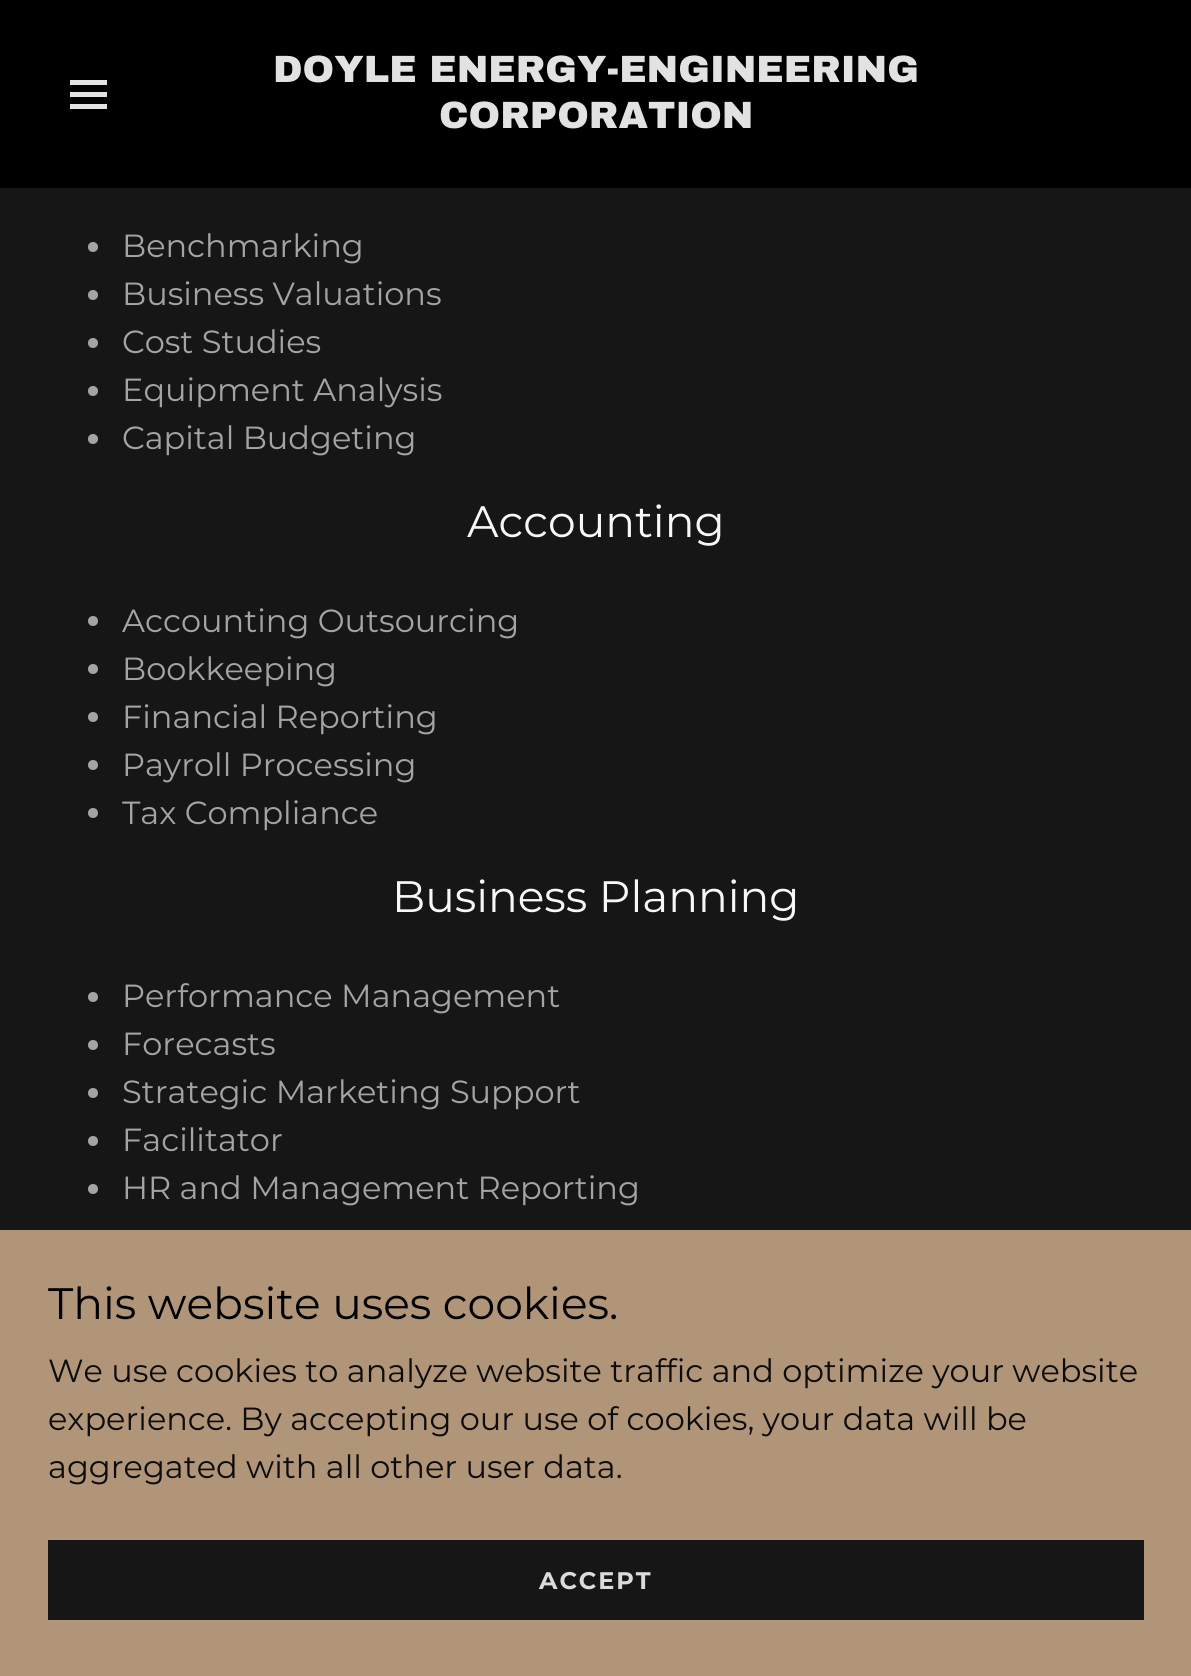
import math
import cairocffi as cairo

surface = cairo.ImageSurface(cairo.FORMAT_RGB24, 1191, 1676)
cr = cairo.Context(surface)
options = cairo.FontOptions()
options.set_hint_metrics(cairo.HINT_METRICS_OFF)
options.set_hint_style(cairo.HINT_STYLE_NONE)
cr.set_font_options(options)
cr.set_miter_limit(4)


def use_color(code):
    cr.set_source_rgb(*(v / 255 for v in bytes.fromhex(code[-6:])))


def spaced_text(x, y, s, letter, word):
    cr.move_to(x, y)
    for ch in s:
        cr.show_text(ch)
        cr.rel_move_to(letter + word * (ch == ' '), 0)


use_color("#161616")
cr.paint()
use_color("#000000")
cr.rectangle(0, 0, 1191, 188)
cr.fill()
use_color("#e2e2e2")
cr.rectangle(70, 80, 37, 5)
cr.fill()
cr.rectangle(70, 92, 37, 5)
cr.fill()
cr.rectangle(70, 104, 37, 5)
cr.fill()
cr.select_font_face("Archivo Black Black")
cr.set_font_size(38)
cr.move_to(273, 82)
cr.show_text("DOYLE ENERGY-ENGINEERING")
cr.move_to(439, 128)
cr.show_text("CORPORATION")
use_color("#a4a4a4")
cr.new_path()
cr.arc(93, 247, 5, 0, 2 * math.pi)
cr.fill()
cr.select_font_face("Montserrat")
cr.set_font_size(32)
cr.move_to(122, 257)
cr.show_text("Benchmarking")
cr.new_path()
cr.arc(93, 295, 5, 0, 2 * math.pi)
cr.fill()
cr.move_to(122, 305)
cr.show_text("Business Valuations")
cr.new_path()
cr.arc(93, 343, 5, 0, 2 * math.pi)
cr.fill()
cr.move_to(122, 353)
cr.show_text("Cost Studies")
cr.new_path()
cr.arc(93, 391, 5, 0, 2 * math.pi)
cr.fill()
cr.move_to(122, 401)
cr.show_text("Equipment Analysis")
cr.new_path()
cr.arc(93, 439, 5, 0, 2 * math.pi)
cr.fill()
cr.move_to(122, 449)
cr.show_text("Capital Budgeting")
cr.set_font_size(44)
use_color("#f7f7f7")
cr.move_to(467, 537)
cr.show_text("Accounting")
use_color("#a4a4a4")
cr.new_path()
cr.arc(93, 621, 5, 0, 2 * math.pi)
cr.fill()
cr.set_font_size(32)
cr.move_to(122, 632)
cr.show_text("Accounting Outsourcing")
cr.new_path()
cr.arc(93, 669, 5, 0, 2 * math.pi)
cr.fill()
cr.move_to(122, 680)
cr.show_text("Bookkeeping")
cr.new_path()
cr.arc(93, 717, 5, 0, 2 * math.pi)
cr.fill()
cr.move_to(122, 728)
cr.show_text("Financial Reporting")
cr.new_path()
cr.arc(93, 765, 5, 0, 2 * math.pi)
cr.fill()
cr.move_to(122, 776)
cr.show_text("Payroll Processing")
cr.new_path()
cr.arc(93, 813, 5, 0, 2 * math.pi)
cr.fill()
cr.move_to(122, 824)
cr.show_text("Tax Compliance")
cr.set_font_size(44)
use_color("#f7f7f7")
cr.move_to(392, 912)
cr.show_text("Business Planning")
use_color("#a4a4a4")
cr.new_path()
cr.arc(93, 997, 5, 0, 2 * math.pi)
cr.fill()
cr.set_font_size(32)
cr.move_to(122, 1007)
cr.show_text("Performance Management")
cr.new_path()
cr.arc(93, 1045, 5, 0, 2 * math.pi)
cr.fill()
cr.move_to(122, 1055)
cr.show_text("Forecasts")
cr.new_path()
cr.arc(93, 1093, 5, 0, 2 * math.pi)
cr.fill()
cr.move_to(122, 1103)
cr.show_text("Strategic Marketing Support")
cr.new_path()
cr.arc(93, 1141, 5, 0, 2 * math.pi)
cr.fill()
cr.move_to(122, 1151)
cr.show_text("Facilitator")
cr.new_path()
cr.arc(93, 1189, 5, 0, 2 * math.pi)
cr.fill()
cr.move_to(122, 1199)
cr.show_text("HR and Management Reporting")
use_color("#b09578")
cr.rectangle(0, 1230, 1191, 446)
cr.fill()
cr.set_font_size(44)
use_color("#000000")
cr.move_to(48, 1319)
cr.show_text("This website uses cookies.")
cr.set_font_size(32)
use_color("#0d0c0c")
cr.move_to(48, 1382)
cr.show_text("We use cookies to analyze website traffic and optimize your website")
cr.move_to(48, 1430)
cr.show_text("experience. By accepting our use of cookies, your data will be")
cr.move_to(48, 1478)
cr.show_text("aggregated with all other user data.")
use_color("#161616")
cr.rectangle(48, 1540, 1096, 80)
cr.fill()
cr.select_font_face("Montserrat", cairo.FONT_SLANT_NORMAL, cairo.FONT_WEIGHT_BOLD)
cr.set_font_size(24)
use_color("#dbdbdb")
spaced_text(539, 1589, "ACCEPT", 2, 0)
surface.write_to_png("result.png")
